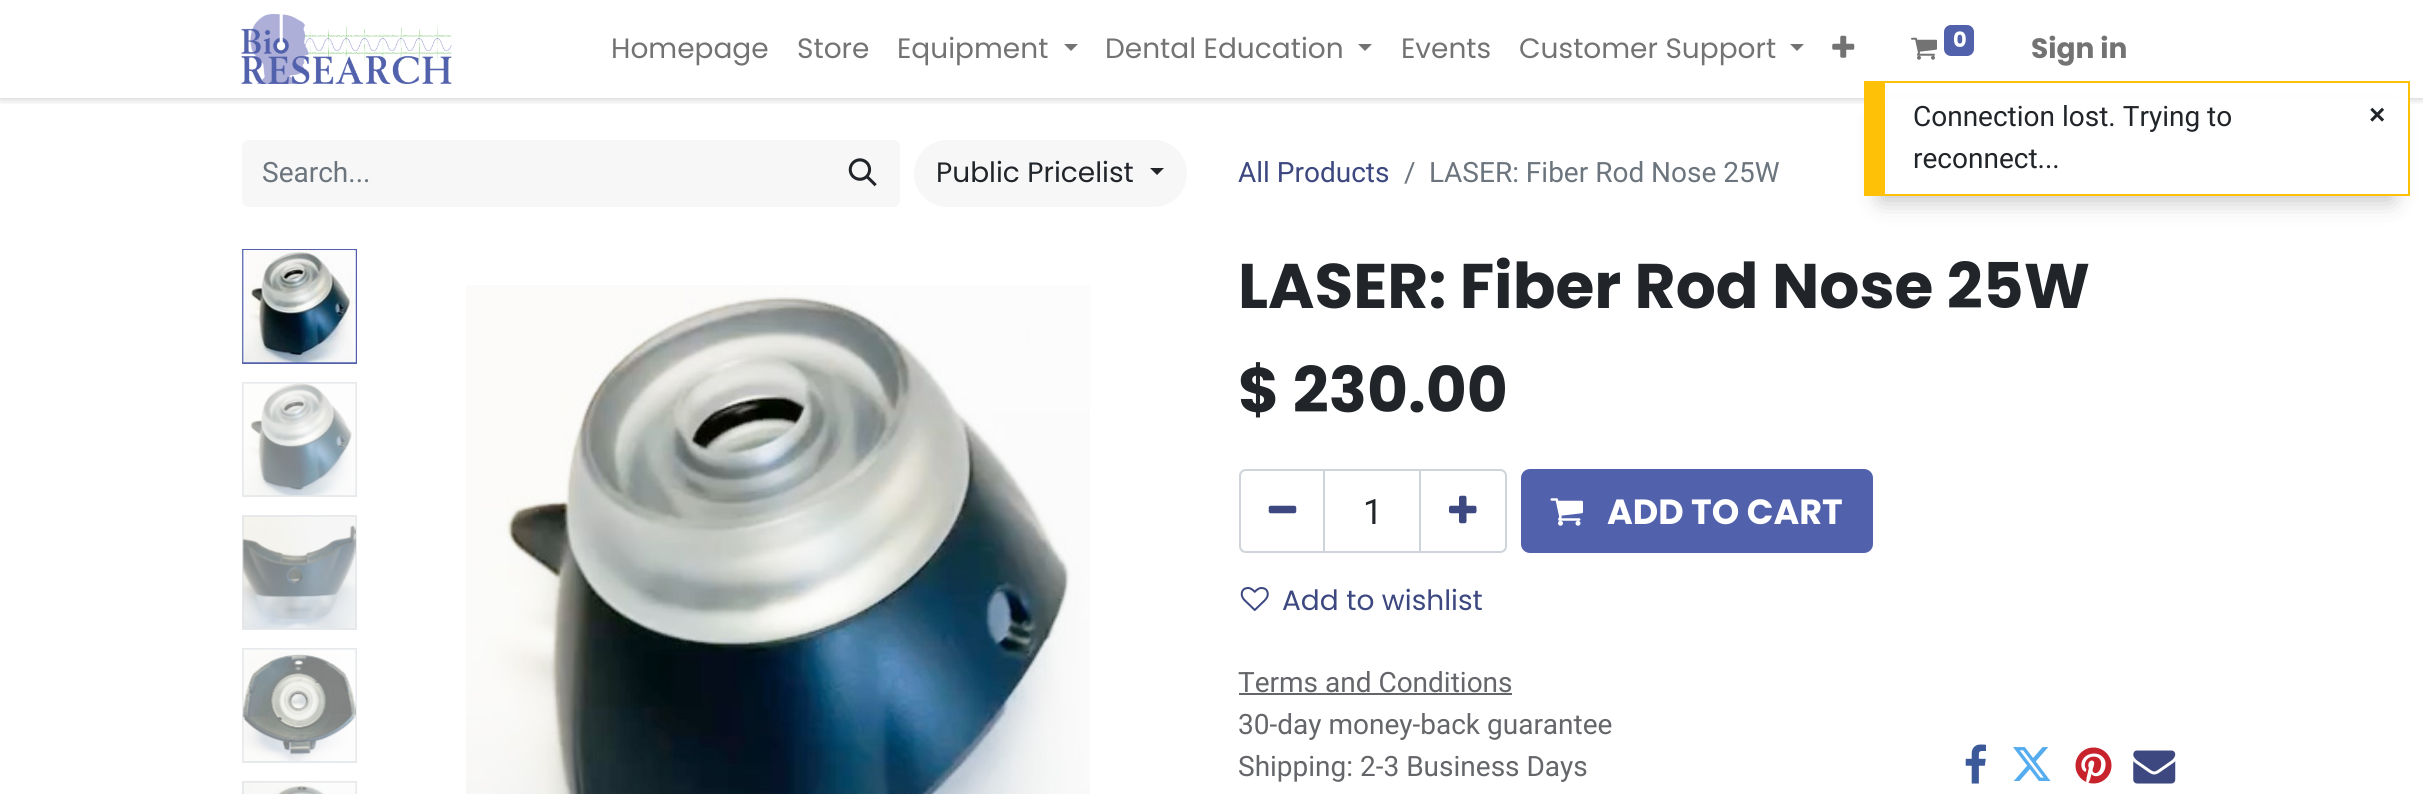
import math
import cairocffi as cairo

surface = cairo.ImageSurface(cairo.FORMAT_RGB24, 2423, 794)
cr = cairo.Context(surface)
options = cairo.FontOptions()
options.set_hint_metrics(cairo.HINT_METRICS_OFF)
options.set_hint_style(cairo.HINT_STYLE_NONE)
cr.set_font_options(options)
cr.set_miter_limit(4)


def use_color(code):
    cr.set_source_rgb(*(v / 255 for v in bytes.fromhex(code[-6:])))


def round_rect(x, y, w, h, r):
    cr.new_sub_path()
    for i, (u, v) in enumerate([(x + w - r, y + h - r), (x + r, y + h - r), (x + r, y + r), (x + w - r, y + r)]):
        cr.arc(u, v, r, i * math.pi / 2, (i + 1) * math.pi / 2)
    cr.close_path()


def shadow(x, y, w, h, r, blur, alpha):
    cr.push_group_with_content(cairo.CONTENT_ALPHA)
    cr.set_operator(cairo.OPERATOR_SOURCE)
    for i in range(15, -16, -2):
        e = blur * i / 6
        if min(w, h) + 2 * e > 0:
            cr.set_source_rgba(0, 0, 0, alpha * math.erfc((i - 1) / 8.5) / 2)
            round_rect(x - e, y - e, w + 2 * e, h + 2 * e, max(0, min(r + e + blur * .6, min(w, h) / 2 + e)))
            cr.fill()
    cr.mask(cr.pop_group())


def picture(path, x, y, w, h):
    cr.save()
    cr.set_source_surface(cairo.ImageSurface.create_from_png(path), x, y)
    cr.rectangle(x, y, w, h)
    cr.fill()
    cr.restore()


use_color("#ffffff")
cr.paint()
cr.save()
cr.rectangle(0, 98, 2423, 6)
cr.clip()
use_color("#000000")
shadow(0, 0, 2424, 98, 0, 4.5, 0.25)
cr.restore()
picture("img1.png", 241, 14, 211, 70)
cr.select_font_face("Poppins")
cr.set_font_size(28)
use_color("#737373")
cr.move_to(611, 58)
cr.show_text("Homepage")
cr.move_to(797, 58)
cr.show_text("Store")
cr.move_to(897, 58)
cr.show_text("Equipment")
cr.new_path()
cr.move_to(1064, 44)
cr.line_to(1078, 44)
cr.line_to(1071, 51)
cr.close_path()
cr.fill()
cr.move_to(1105, 58)
cr.show_text("Dental Education")
cr.new_path()
cr.move_to(1358, 44)
cr.line_to(1372, 44)
cr.line_to(1365, 51)
cr.close_path()
cr.fill()
cr.move_to(1401, 58)
cr.show_text("Events")
cr.move_to(1519, 58)
cr.show_text("Customer Support")
cr.new_path()
cr.move_to(1790, 44)
cr.line_to(1804, 44)
cr.line_to(1797, 51)
cr.close_path()
cr.fill()
picture("img2.png", 1832, 35, 23, 23)
picture("img3.png", 1911, 37, 26, 23)
use_color("#5161ac")
round_rect(1944, 25, 30, 31, 7)
cr.fill()
cr.select_font_face("Poppins", cairo.FONT_SLANT_NORMAL, cairo.FONT_WEIGHT_BOLD)
cr.set_font_size(21)
use_color("#ffffff")
cr.move_to(1953, 47)
cr.show_text("0")
cr.set_font_size(28)
use_color("#737373")
cr.move_to(2031, 58)
cr.show_text("Sign in")
use_color("#f7f7f7")
cr.new_path()
cr.move_to(249, 140)
cr.line_to(828, 140)
cr.line_to(828, 207)
cr.line_to(249, 207)
cr.curve_to(245, 207, 242, 204, 242, 200)
cr.line_to(242, 147)
cr.curve_to(242, 143, 245, 140, 249, 140)
cr.close_path()
cr.fill()
cr.select_font_face("Roboto")
use_color("#6c757d")
cr.move_to(262, 182)
cr.show_text("Search...")
use_color("#f7f7f7")
cr.new_path()
cr.move_to(826, 140)
cr.line_to(893, 140)
cr.curve_to(897, 140, 900, 143, 900, 147)
cr.line_to(900, 200)
cr.curve_to(900, 204, 897, 207, 893, 207)
cr.line_to(826, 207)
cr.close_path()
cr.fill()
picture("img4.png", 848, 158, 29, 29)
round_rect(914, 140, 273, 67, 33.5)
cr.fill()
cr.select_font_face("Poppins")
use_color("#212529")
cr.move_to(936, 182)
cr.show_text("Public Pricelist")
cr.new_path()
cr.move_to(1150, 168)
cr.line_to(1164, 168)
cr.line_to(1157, 175)
cr.close_path()
cr.fill()
cr.select_font_face("Roboto")
use_color("#3c487f")
cr.move_to(1238, 182)
cr.show_text("All Products")
use_color("#6c757d")
cr.move_to(1404, 182)
cr.show_text("/")
cr.move_to(1429, 182)
cr.show_text("LASER: Fiber Rod Nose 25W")
cr.rectangle(243, 250, 113, 113)
use_color("#5161ac")
cr.stroke()
picture("img5.png", 242, 250, 114, 113)
cr.rectangle(243, 383, 113, 113)
use_color("#e7eaed")
cr.stroke()
picture("img6.png", 243, 383, 113, 113)
cr.rectangle(243, 516, 113, 113)
cr.stroke()
picture("img7.png", 242, 516, 114, 113)
cr.rectangle(243, 649, 113, 113)
cr.stroke()
picture("img8.png", 242, 649, 114, 112)
cr.rectangle(243, 782, 113, 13)
cr.stroke()
picture("img9.png", 244, 782, 112, 12)
picture("img10.png", 466, 285, 624, 509)
cr.select_font_face("Poppins", cairo.FONT_SLANT_NORMAL, cairo.FONT_WEIGHT_BOLD)
cr.set_font_size(63)
use_color("#212529")
cr.move_to(1238, 308)
cr.show_text("LASER: Fiber Rod Nose 25W")
cr.move_to(1238, 412)
cr.show_text("$ 230.00")
cr.rectangle(1324, 470, 96, 82)
use_color("#ced4da")
cr.stroke()
cr.new_path()
cr.move_to(1246, 470)
cr.line_to(1324, 470)
cr.line_to(1324, 552)
cr.line_to(1246, 552)
cr.curve_to(1242.5, 552, 1240, 549.5, 1240, 546)
cr.line_to(1240, 476)
cr.curve_to(1240, 472.5, 1242.5, 470, 1246, 470)
cr.close_path()
cr.stroke()
picture("img11.png", 1268, 505, 29, 9)
cr.select_font_face("Roboto")
cr.set_font_size(35)
use_color("#212529")
cr.move_to(1363, 524)
cr.show_text("1")
cr.new_path()
cr.move_to(1420, 470)
cr.line_to(1500, 470)
cr.curve_to(1503.5, 470, 1506, 472.5, 1506, 476)
cr.line_to(1506, 546)
cr.curve_to(1506, 549.5, 1503.5, 552, 1500, 552)
cr.line_to(1420, 552)
cr.close_path()
use_color("#ced4da")
cr.stroke()
picture("img12.png", 1449, 495, 28, 29)
use_color("#5161ac")
round_rect(1522, 470, 350, 82, 8)
cr.fill_preserve()
cr.stroke()
picture("img13.png", 1550, 498, 33, 28)
cr.select_font_face("Poppins", cairo.FONT_SLANT_NORMAL, cairo.FONT_WEIGHT_BOLD)
use_color("#ffffff")
cr.move_to(1607, 524)
cr.show_text("ADD TO CART")
picture("img14.png", 1240, 587, 29, 24)
cr.select_font_face("Poppins")
cr.set_font_size(28)
use_color("#3c487f")
cr.move_to(1282, 610)
cr.show_text("Add to wishlist")
cr.select_font_face("Roboto")
use_color("#646669")
cr.move_to(1238, 692)
cr.show_text("Terms and Conditions")
cr.rectangle(1239, 693, 273, 2)
cr.fill()
cr.move_to(1238, 734)
cr.show_text("30-day money-back guarantee")
cr.move_to(1238, 776)
cr.show_text("Shipping: 2-3 Business Days")
picture("img15.png", 1965, 744, 21, 40)
picture("img16.png", 2013, 747, 38, 34)
picture("img17.png", 2075, 747, 37, 37)
picture("img18.png", 2133, 750, 43, 34)
use_color("#000000")
shadow(1881, 119, 511, 81, 0, 12, 0.25)
use_color("#ffffff")
cr.rectangle(1885, 98, 523, 96)
cr.fill()
use_color("#ffc107")
cr.rectangle(1885, 81, 525, 2)
cr.fill()
cr.rectangle(2408, 81, 2, 115)
cr.fill()
cr.rectangle(1885, 194, 525, 2)
cr.fill()
cr.rectangle(1864, 81, 21, 115)
cr.fill()
use_color("#212529")
cr.move_to(1913, 126)
cr.show_text("Connection lost. Trying to")
cr.move_to(1913, 168)
cr.show_text("reconnect...")
cr.select_font_face("Liberation Sans", cairo.FONT_SLANT_NORMAL, cairo.FONT_WEIGHT_BOLD)
cr.move_to(2369, 124)
cr.show_text("×")
surface.write_to_png("result.png")
